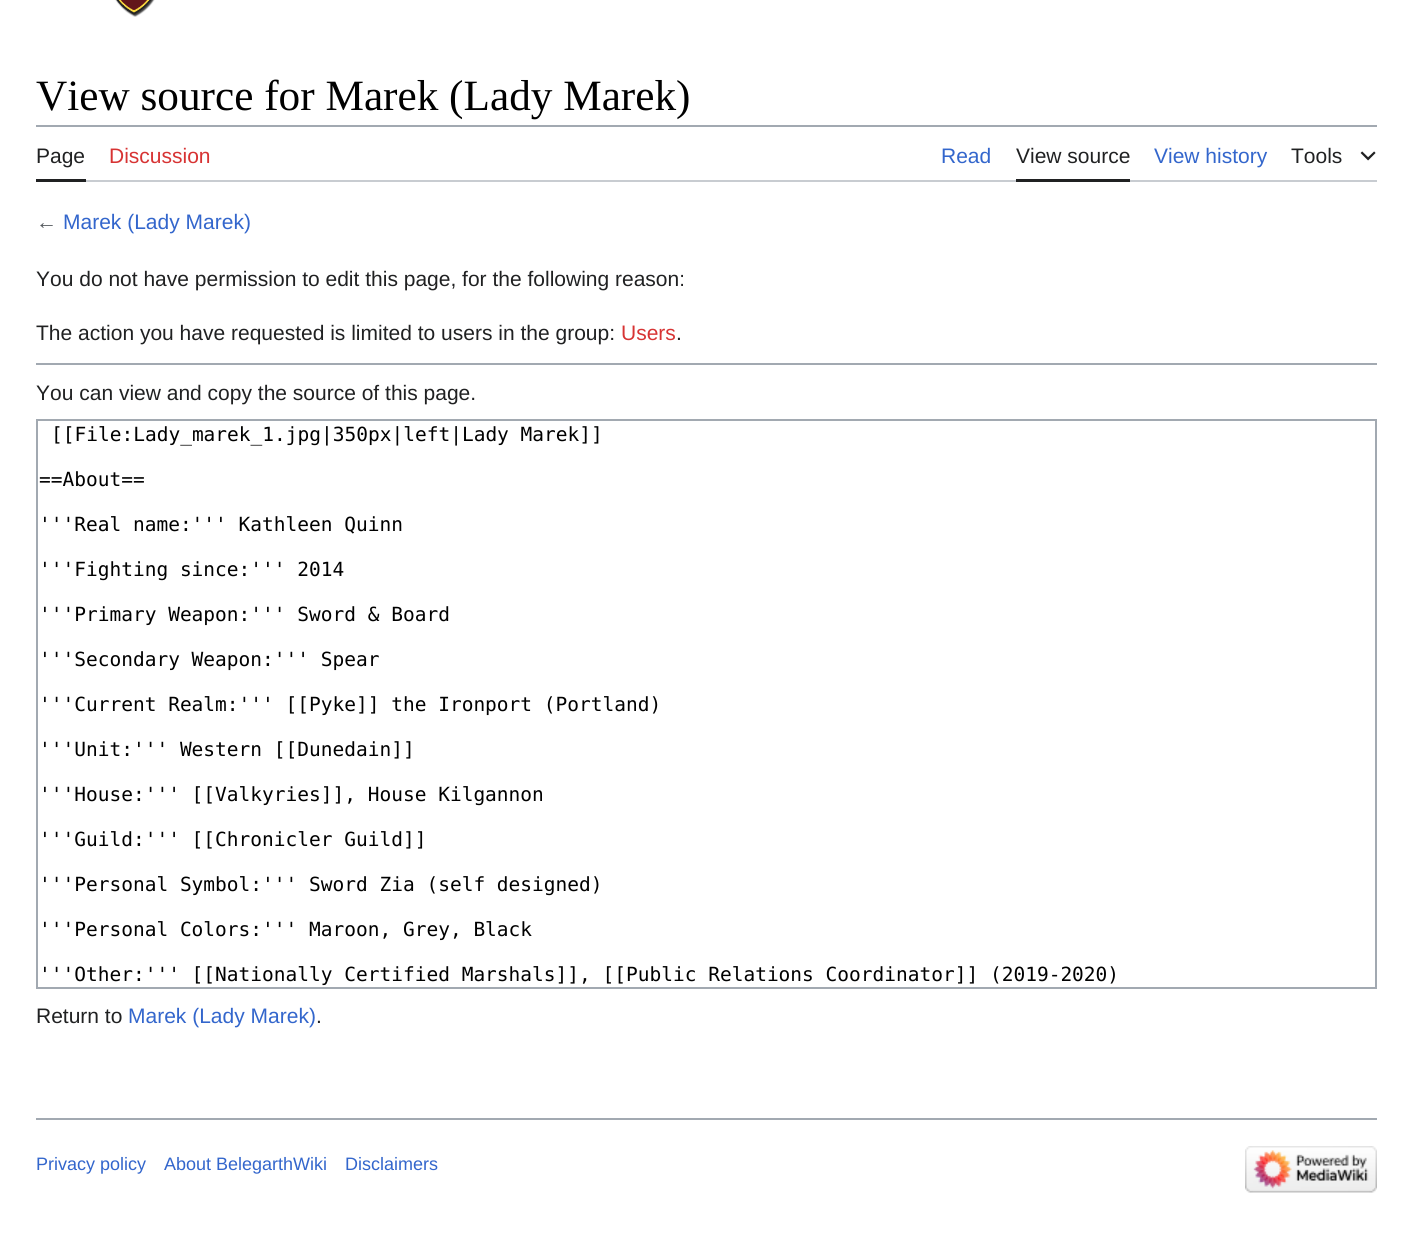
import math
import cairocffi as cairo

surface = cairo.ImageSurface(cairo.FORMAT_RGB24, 1412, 1241)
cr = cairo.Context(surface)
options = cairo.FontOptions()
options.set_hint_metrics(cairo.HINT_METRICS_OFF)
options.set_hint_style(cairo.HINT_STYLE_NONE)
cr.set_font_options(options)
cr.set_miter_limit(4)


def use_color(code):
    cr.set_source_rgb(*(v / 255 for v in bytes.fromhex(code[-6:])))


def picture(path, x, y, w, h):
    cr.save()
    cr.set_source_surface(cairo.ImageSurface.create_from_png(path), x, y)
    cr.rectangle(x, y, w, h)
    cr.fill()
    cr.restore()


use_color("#ffffff")
cr.paint()
picture("img1.png", 115, 0, 40, 17)
cr.select_font_face("Liberation Serif")
cr.set_font_size(43.25)
use_color("#000000")
cr.move_to(36, 110)
cr.show_text("View source for Marek (Lady Marek)")
use_color("#a2a9b1")
cr.rectangle(36, 125, 1341, 2)
cr.fill()
use_color("#c8ccd1")
cr.rectangle(86, 180, 1291, 2)
cr.fill()
use_color("#202122")
cr.rectangle(36, 179, 50, 3)
cr.fill()
cr.select_font_face("Liberation Sans")
cr.set_font_size(21)
cr.move_to(36, 163)
cr.show_text("Page")
use_color("#d73333")
cr.move_to(109, 163)
cr.show_text("Discussion")
use_color("#3366cc")
cr.move_to(941, 163)
cr.show_text("Read")
use_color("#202122")
cr.rectangle(1016, 179, 114, 3)
cr.fill()
cr.move_to(1016, 163)
cr.show_text("View source")
use_color("#3366cc")
cr.move_to(1154, 163)
cr.show_text("View history")
use_color("#202122")
cr.move_to(1291, 163)
cr.show_text("Tools")
picture("img2.png", 1360, 151, 16, 10)
use_color("#54595d")
cr.move_to(36, 229)
cr.show_text("←")
use_color("#3366cc")
cr.move_to(63, 229)
cr.show_text("Marek (Lady Marek)")
use_color("#202122")
cr.move_to(36, 286)
cr.show_text("You do not have permission to edit this page, for the following reason:")
cr.move_to(36, 340)
cr.show_text("The action you have requested is limited to users in the group:")
use_color("#d73333")
cr.move_to(621, 340)
cr.show_text("Users")
use_color("#202122")
cr.move_to(676, 340)
cr.show_text(".")
use_color("#a2a9b1")
cr.rectangle(36, 363, 1341, 2)
cr.fill()
use_color("#202122")
cr.move_to(36, 400)
cr.show_text("You can view and copy the source of this page.")
cr.rectangle(37, 420, 1339, 568)
use_color("#a2a9b1")
cr.stroke()
cr.select_font_face("DejaVu Sans Mono")
cr.set_font_size(19.5)
use_color("#000000")
cr.move_to(51, 441)
cr.show_text("[[File:Lady_marek_1.jpg|350px|left|Lady Marek]]")
cr.move_to(39, 486)
cr.show_text("==About==")
cr.move_to(39, 531)
cr.show_text("'''Real name:''' Kathleen Quinn")
cr.move_to(39, 576)
cr.show_text("'''Fighting since:''' 2014")
cr.move_to(39, 621)
cr.show_text("'''Primary Weapon:''' Sword & Board")
cr.move_to(39, 666)
cr.show_text("'''Secondary Weapon:''' Spear")
cr.move_to(39, 711)
cr.show_text("'''Current Realm:''' [[Pyke]] the Ironport (Portland)")
cr.move_to(39, 756)
cr.show_text("'''Unit:''' Western [[Dunedain]]")
cr.move_to(39, 801)
cr.show_text("'''House:''' [[Valkyries]], House Kilgannon")
cr.move_to(39, 846)
cr.show_text("'''Guild:''' [[Chronicler Guild]]")
cr.move_to(39, 891)
cr.show_text("'''Personal Symbol:''' Sword Zia (self designed)")
cr.move_to(39, 936)
cr.show_text("'''Personal Colors:''' Maroon, Grey, Black")
cr.move_to(39, 981)
cr.show_text("'''Other:''' [[Nationally Certified Marshals]], [[Public Relations Coordinator]] (2019-2020)")
cr.select_font_face("Liberation Sans")
cr.set_font_size(21)
use_color("#202122")
cr.move_to(36, 1023)
cr.show_text("Return to")
use_color("#3366cc")
cr.move_to(128, 1023)
cr.show_text("Marek (Lady Marek)")
use_color("#202122")
cr.move_to(316, 1023)
cr.show_text(".")
use_color("#a2a9b1")
cr.rectangle(36, 1118, 1341, 2)
cr.fill()
cr.set_font_size(18)
use_color("#3366cc")
cr.move_to(36, 1170)
cr.show_text("Privacy policy")
cr.move_to(164, 1170)
cr.show_text("About BelegarthWiki")
cr.move_to(345, 1170)
cr.show_text("Disclaimers")
picture("img3.png", 1245, 1146, 132, 47)
surface.write_to_png("result.png")
